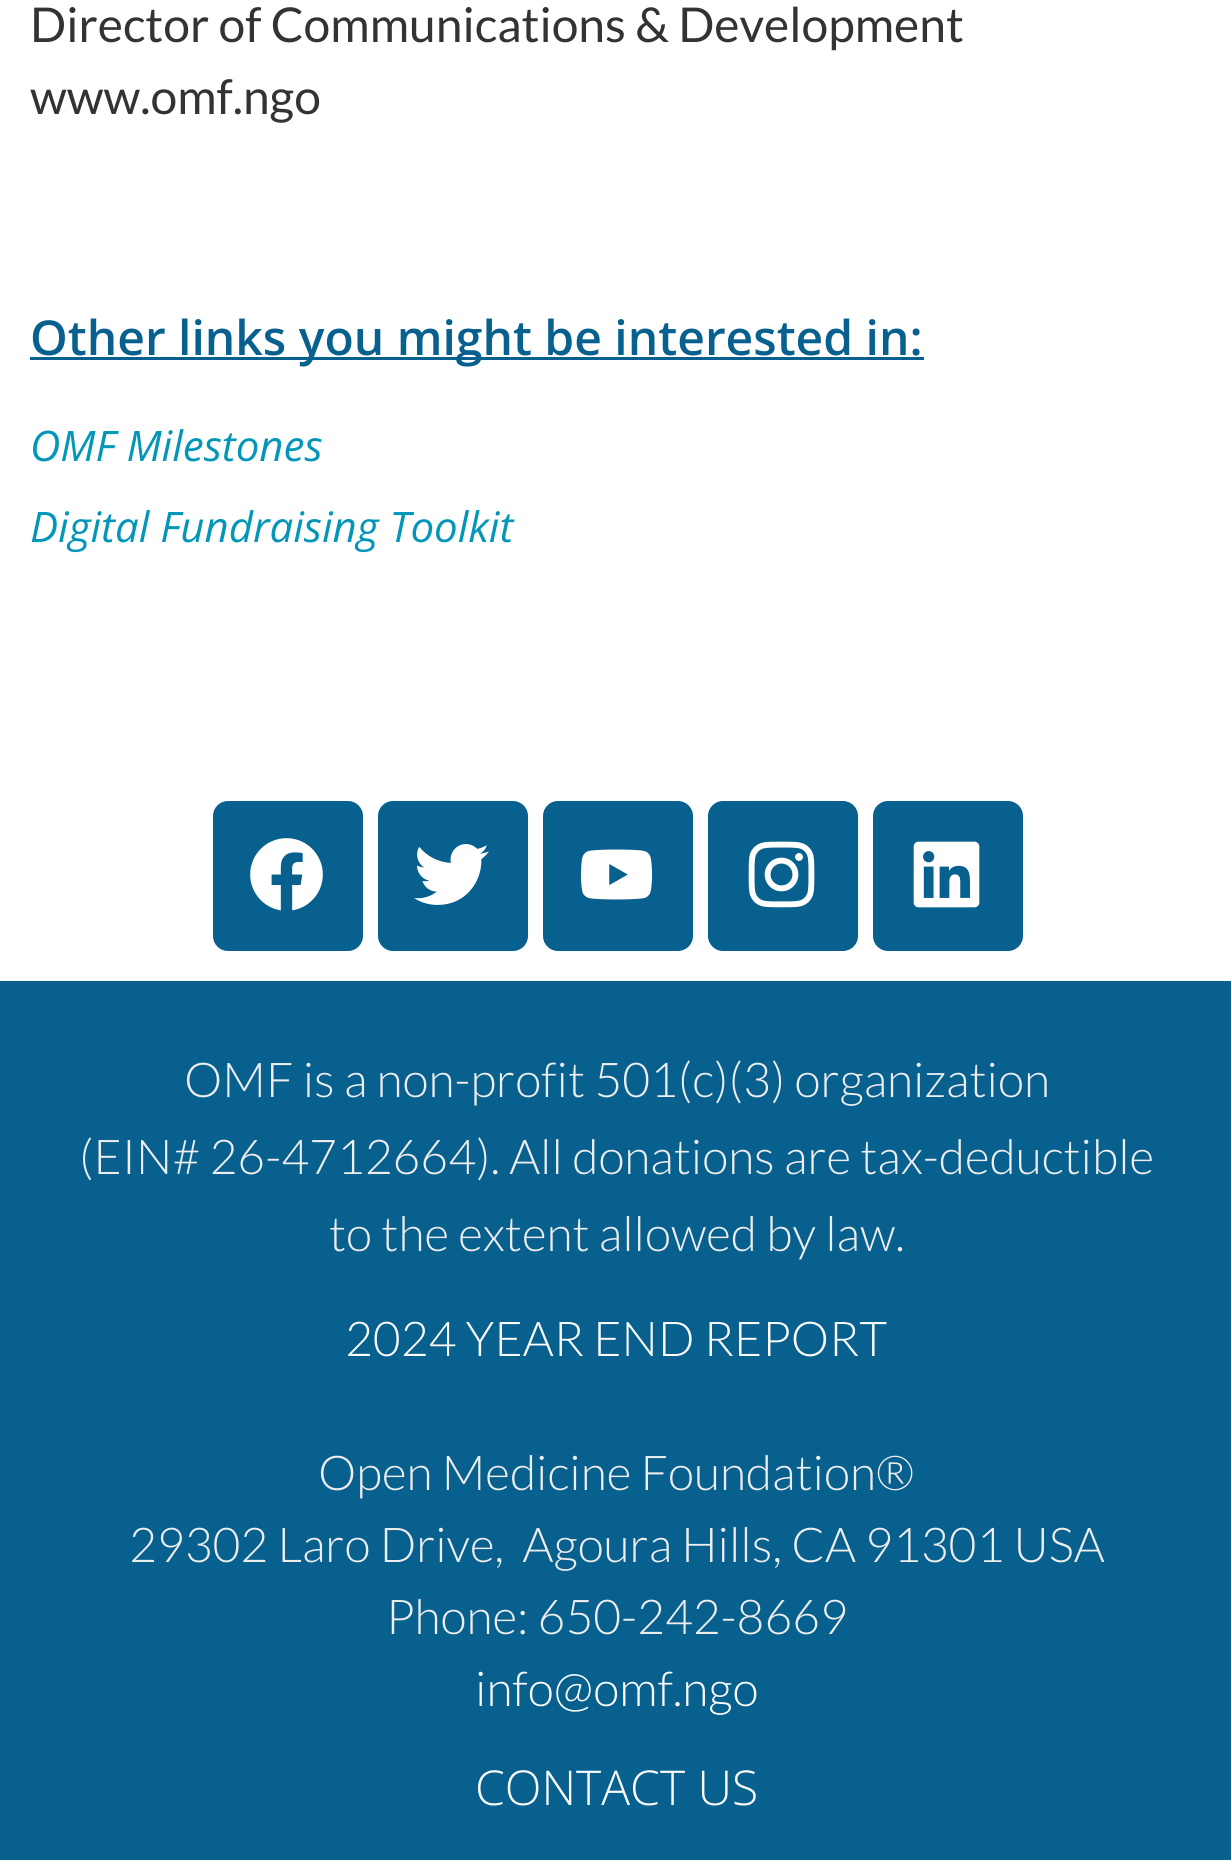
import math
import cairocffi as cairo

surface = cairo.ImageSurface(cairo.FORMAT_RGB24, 1231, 1860)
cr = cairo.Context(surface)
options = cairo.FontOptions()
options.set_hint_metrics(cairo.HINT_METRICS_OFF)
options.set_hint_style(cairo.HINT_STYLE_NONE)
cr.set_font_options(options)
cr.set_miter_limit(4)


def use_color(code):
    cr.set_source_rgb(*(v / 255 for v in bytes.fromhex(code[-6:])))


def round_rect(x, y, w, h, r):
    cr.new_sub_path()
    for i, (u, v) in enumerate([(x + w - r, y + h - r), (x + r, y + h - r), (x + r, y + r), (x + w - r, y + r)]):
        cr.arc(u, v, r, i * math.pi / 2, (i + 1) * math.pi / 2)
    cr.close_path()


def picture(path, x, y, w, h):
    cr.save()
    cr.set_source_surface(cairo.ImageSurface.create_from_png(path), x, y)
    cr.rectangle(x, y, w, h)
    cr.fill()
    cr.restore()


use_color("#ffffff")
cr.paint()
cr.select_font_face("Lato")
cr.set_font_size(48)
use_color("#333333")
cr.move_to(30, 42)
cr.show_text("Director of Communications & Development")
cr.move_to(30, 114)
cr.show_text("www.omf.ngo")
use_color("#08608e")
cr.rectangle(30, 357, 894, 3)
cr.fill()
cr.select_font_face("Open Sans SemiBold")
cr.move_to(30, 355)
cr.show_text("Other links you might be interested in:")
cr.select_font_face("Open Sans", cairo.FONT_SLANT_ITALIC)
cr.set_font_size(42)
use_color("#0396b9")
cr.move_to(30, 461)
cr.show_text("OMF Milestones")
cr.move_to(30, 542)
cr.show_text("Digital Fundraising Toolkit")
use_color("#08608e")
round_rect(213, 801, 150, 150, 15)
cr.fill()
picture("img1.png", 250, 838, 73, 73)
round_rect(378, 801, 150, 150, 15)
cr.fill()
picture("img2.png", 414, 844, 75, 61)
round_rect(543, 801, 150, 150, 15)
cr.fill()
picture("img3.png", 580, 849, 73, 51)
round_rect(708, 801, 150, 150, 15)
cr.fill()
picture("img4.png", 748, 841, 67, 67)
round_rect(873, 801, 150, 150, 15)
cr.fill()
picture("img5.png", 913, 841, 67, 67)
cr.rectangle(0, 981, 1231, 879)
cr.fill()
cr.select_font_face("Lato Light")
cr.set_font_size(48)
use_color("#eeeeee")
cr.move_to(184, 1097)
cr.show_text("OMF is a non-profit 501(c)(3) organization")
cr.move_to(79, 1174)
cr.show_text("(EIN# 26-4712664). All donations are tax-deductible")
cr.move_to(329, 1251)
cr.show_text("to the extent allowed by law.")
use_color("#ffffff")
cr.move_to(345, 1356)
cr.show_text("2024 YEAR END REPORT")
use_color("#eeeeee")
cr.move_to(318, 1490)
cr.show_text("Open Medicine Foundation®")
cr.move_to(129, 1562)
cr.show_text("29302 Laro Drive,  Agoura Hills, CA 91301 USA")
cr.move_to(386, 1634)
cr.show_text("Phone: 650-242-8669")
use_color("#ffffff")
cr.move_to(475, 1706)
cr.show_text("info@omf.ngo")
cr.select_font_face("Open Sans Light")
cr.move_to(475, 1805)
cr.show_text("CONTACT US")
surface.write_to_png("result.png")
